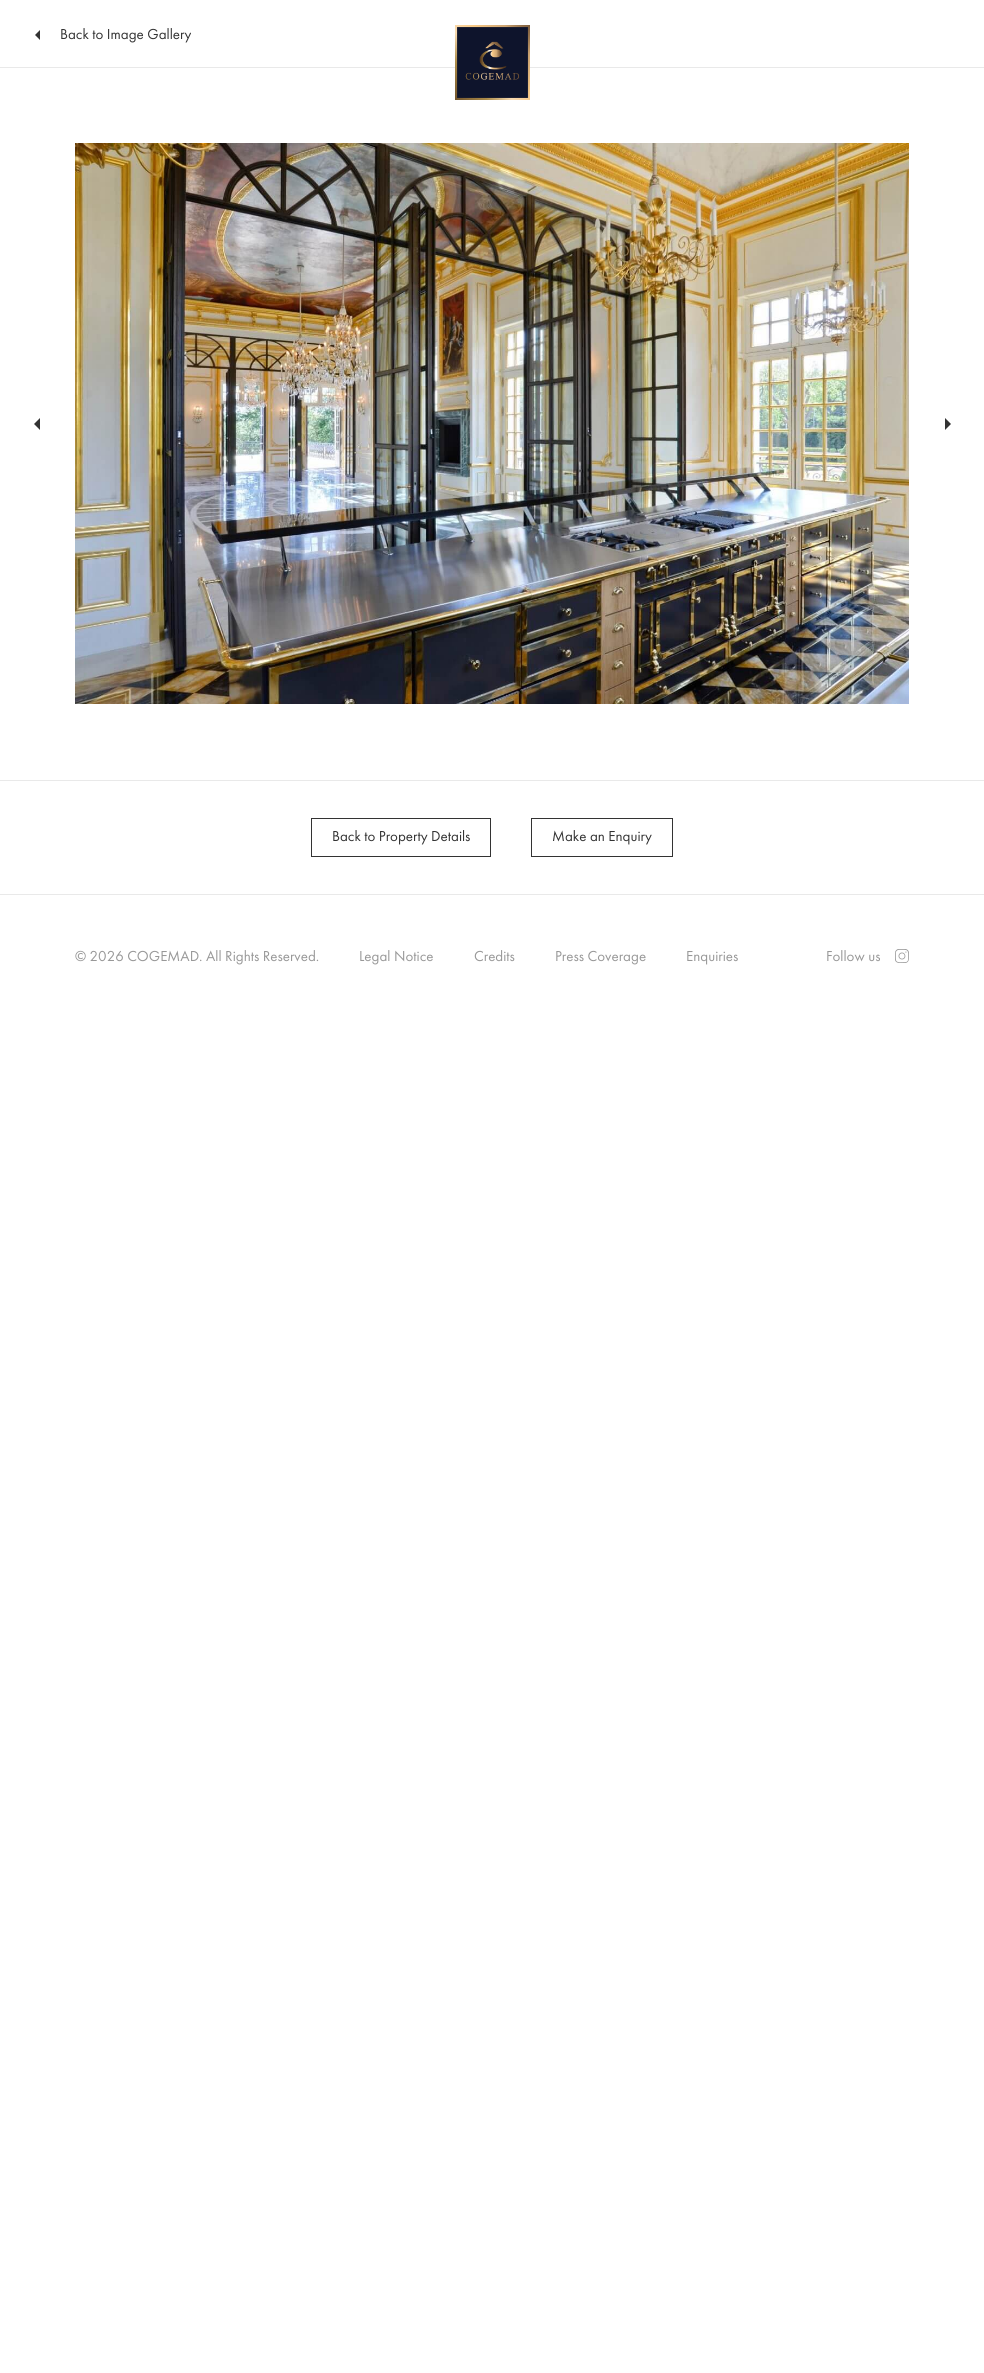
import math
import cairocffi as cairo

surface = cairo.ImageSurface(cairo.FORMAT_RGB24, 984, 2373)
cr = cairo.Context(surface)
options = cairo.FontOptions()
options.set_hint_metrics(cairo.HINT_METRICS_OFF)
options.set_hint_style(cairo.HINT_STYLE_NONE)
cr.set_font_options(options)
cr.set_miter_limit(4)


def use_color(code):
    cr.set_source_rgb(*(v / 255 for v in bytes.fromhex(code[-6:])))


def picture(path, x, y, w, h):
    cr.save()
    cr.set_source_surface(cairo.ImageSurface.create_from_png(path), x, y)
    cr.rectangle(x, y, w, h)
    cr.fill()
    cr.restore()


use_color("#ffffff")
cr.paint()
use_color("#e9e9e9")
cr.rectangle(0, 67, 984, 1)
cr.fill()
use_color("#333333")
cr.new_path()
cr.move_to(40, 30)
cr.line_to(40, 40)
cr.line_to(35, 35)
cr.close_path()
cr.fill()
cr.select_font_face("Futura PT")
cr.set_font_size(15)
cr.move_to(60, 39)
cr.show_text("Back to Image Gallery")
picture("img1.png", 455, 25, 75, 75)
picture("img2.png", 75, 143, 834, 561)
cr.new_path()
cr.move_to(40, 418)
cr.line_to(40, 430)
cr.line_to(34, 424)
cr.close_path()
cr.fill()
cr.new_path()
cr.move_to(945, 430)
cr.line_to(945, 418)
cr.line_to(951, 424)
cr.close_path()
cr.fill()
use_color("#e9e9e9")
cr.rectangle(0, 780, 984, 1)
cr.fill()
cr.rectangle(311.5, 818.5, 179, 38)
use_color("#333333")
cr.set_line_width(1)
cr.stroke()
cr.move_to(332, 841)
cr.show_text("Back to Property Details")
cr.rectangle(531.5, 818.5, 141, 38)
cr.stroke()
cr.move_to(552, 841)
cr.show_text("Make an Enquiry")
use_color("#e9e9e9")
cr.rectangle(0, 894, 984, 1)
cr.fill()
use_color("#989898")
cr.move_to(75, 961)
cr.show_text("© 2026 COGEMAD. All Rights Reserved.")
cr.move_to(359, 961)
cr.show_text("Legal Notice")
cr.move_to(474, 961)
cr.show_text("Credits")
cr.move_to(555, 961)
cr.show_text("Press Coverage")
cr.move_to(686, 961)
cr.show_text("Enquiries")
cr.move_to(826, 961)
cr.show_text("Follow us")
picture("img3.png", 895, 949, 14, 14)
surface.write_to_png("result.png")
